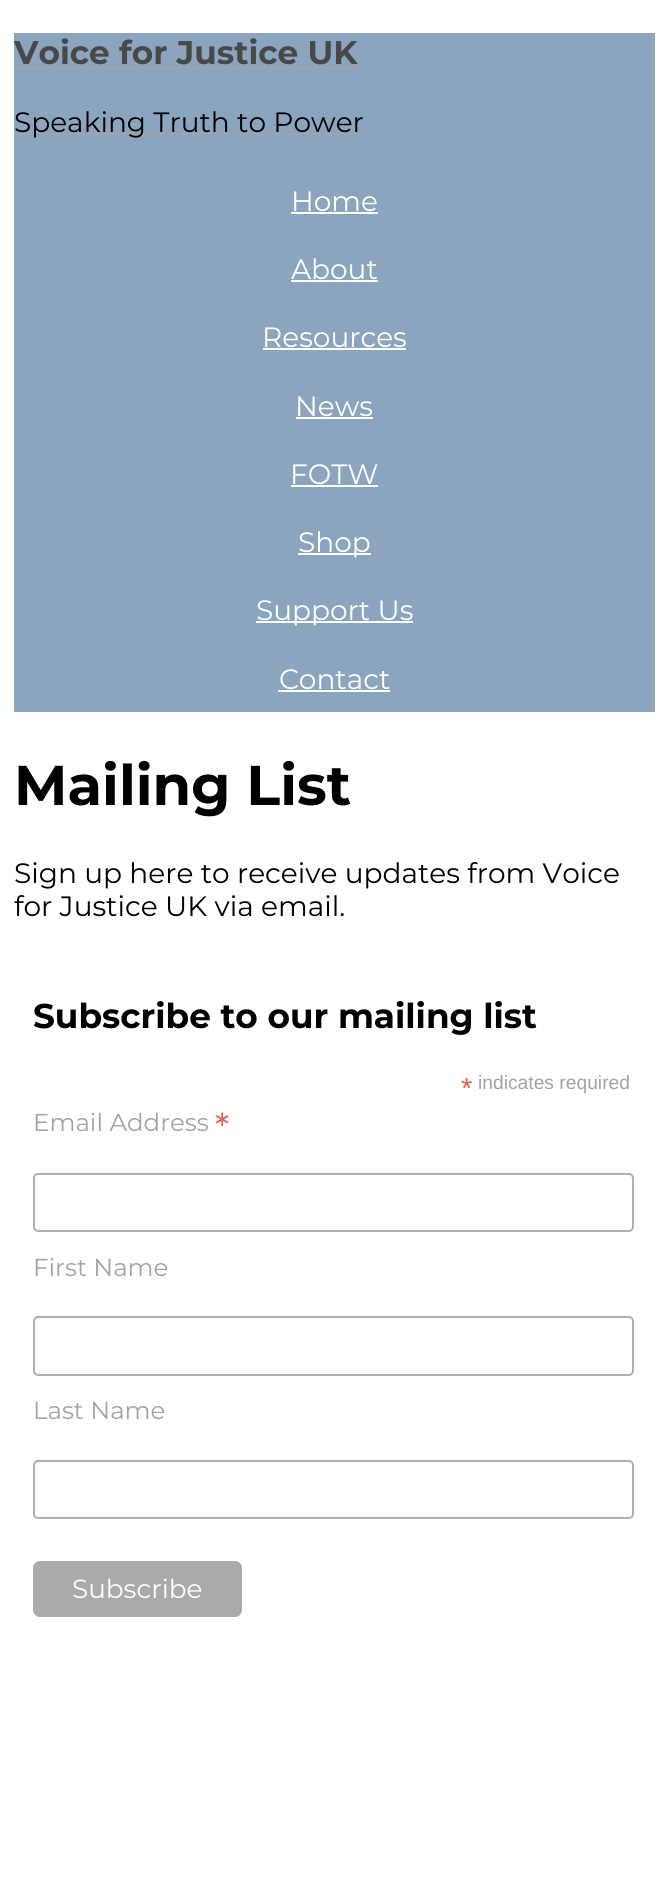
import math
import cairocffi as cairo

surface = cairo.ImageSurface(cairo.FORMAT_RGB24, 667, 1885)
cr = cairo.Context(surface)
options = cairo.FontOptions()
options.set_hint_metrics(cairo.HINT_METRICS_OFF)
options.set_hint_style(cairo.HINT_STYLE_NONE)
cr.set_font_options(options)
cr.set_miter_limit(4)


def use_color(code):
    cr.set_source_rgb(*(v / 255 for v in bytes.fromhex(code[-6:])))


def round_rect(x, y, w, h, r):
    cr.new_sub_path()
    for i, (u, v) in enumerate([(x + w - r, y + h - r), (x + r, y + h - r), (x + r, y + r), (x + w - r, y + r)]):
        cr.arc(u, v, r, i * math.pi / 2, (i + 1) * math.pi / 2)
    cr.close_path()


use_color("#ffffff")
cr.paint()
use_color("#8ba5bf")
cr.rectangle(14, 33, 641, 679)
cr.fill()
cr.select_font_face("Montserrat", cairo.FONT_SLANT_NORMAL, cairo.FONT_WEIGHT_BOLD)
cr.set_font_size(32.75)
use_color("#484848")
cr.move_to(14, 64)
cr.show_text("Voice for Justice UK")
use_color("#a3a3a3")
cr.rectangle(14, 67, 343, 2)
cr.fill()
cr.rectangle(14, 133, 350, 2)
cr.fill()
cr.select_font_face("Montserrat")
cr.set_font_size(28)
use_color("#000000")
cr.move_to(14, 132)
cr.show_text("Speaking Truth to Power")
use_color("#ffffff")
cr.move_to(291, 211)
cr.show_text("Home")
cr.rectangle(291, 212, 87, 2)
cr.fill()
cr.move_to(291, 279)
cr.show_text("About")
cr.rectangle(291, 280, 87, 2)
cr.fill()
cr.move_to(262, 347)
cr.show_text("Resources")
cr.rectangle(263, 348, 143, 2)
cr.fill()
cr.move_to(295, 416)
cr.show_text("News")
cr.rectangle(296, 417, 77, 2)
cr.fill()
cr.move_to(290, 484)
cr.show_text("FOTW")
cr.rectangle(291, 485, 87, 2)
cr.fill()
cr.rectangle(298, 553, 73, 2)
cr.fill()
cr.move_to(298, 552)
cr.show_text("Shop")
cr.rectangle(256, 621, 157, 2)
cr.fill()
cr.move_to(256, 620)
cr.show_text("Support Us")
cr.move_to(279, 689)
cr.show_text("Contact")
cr.rectangle(278, 690, 112, 2)
cr.fill()
cr.select_font_face("Montserrat", cairo.FONT_SLANT_NORMAL, cairo.FONT_WEIGHT_BOLD)
cr.set_font_size(56)
use_color("#000000")
cr.move_to(14, 805)
cr.show_text("Mailing List")
cr.select_font_face("Montserrat")
cr.set_font_size(28)
cr.move_to(14, 883)
cr.show_text("Sign up here to receive updates from Voice")
cr.move_to(14, 916)
cr.show_text("for Justice UK via email.")
cr.select_font_face("Montserrat", cairo.FONT_SLANT_NORMAL, cairo.FONT_WEIGHT_BOLD)
cr.set_font_size(34.25)
cr.move_to(33, 1028)
cr.show_text("Subscribe to our mailing list")
cr.select_font_face("Liberation Sans")
cr.set_font_size(29)
use_color("#e85c41")
cr.move_to(461, 1098)
cr.show_text("*")
cr.set_font_size(19.25)
use_color("#a3a3a3")
cr.move_to(478, 1089)
cr.show_text("indicates required")
cr.select_font_face("Montserrat")
cr.set_font_size(24.5)
cr.move_to(33, 1131)
cr.show_text("Email Address")
cr.set_font_size(37)
use_color("#e85c41")
cr.move_to(215, 1140)
cr.show_text("*")
round_rect(34, 1174, 599, 57, 4)
use_color("#abb0b2")
cr.stroke()
cr.set_font_size(24.5)
use_color("#a3a3a3")
cr.move_to(33, 1276)
cr.show_text("First Name")
round_rect(34, 1317, 599, 58, 4)
use_color("#abb0b2")
cr.stroke()
use_color("#a3a3a3")
cr.move_to(33, 1419)
cr.show_text("Last Name")
round_rect(34, 1461, 599, 57, 4)
use_color("#abb0b2")
cr.stroke()
use_color("#aaaaaa")
round_rect(33, 1561, 209, 56, 7)
cr.fill()
cr.set_font_size(26.25)
use_color("#ffffff")
cr.move_to(72, 1598)
cr.show_text("Subscribe")
surface.write_to_png("result.png")
